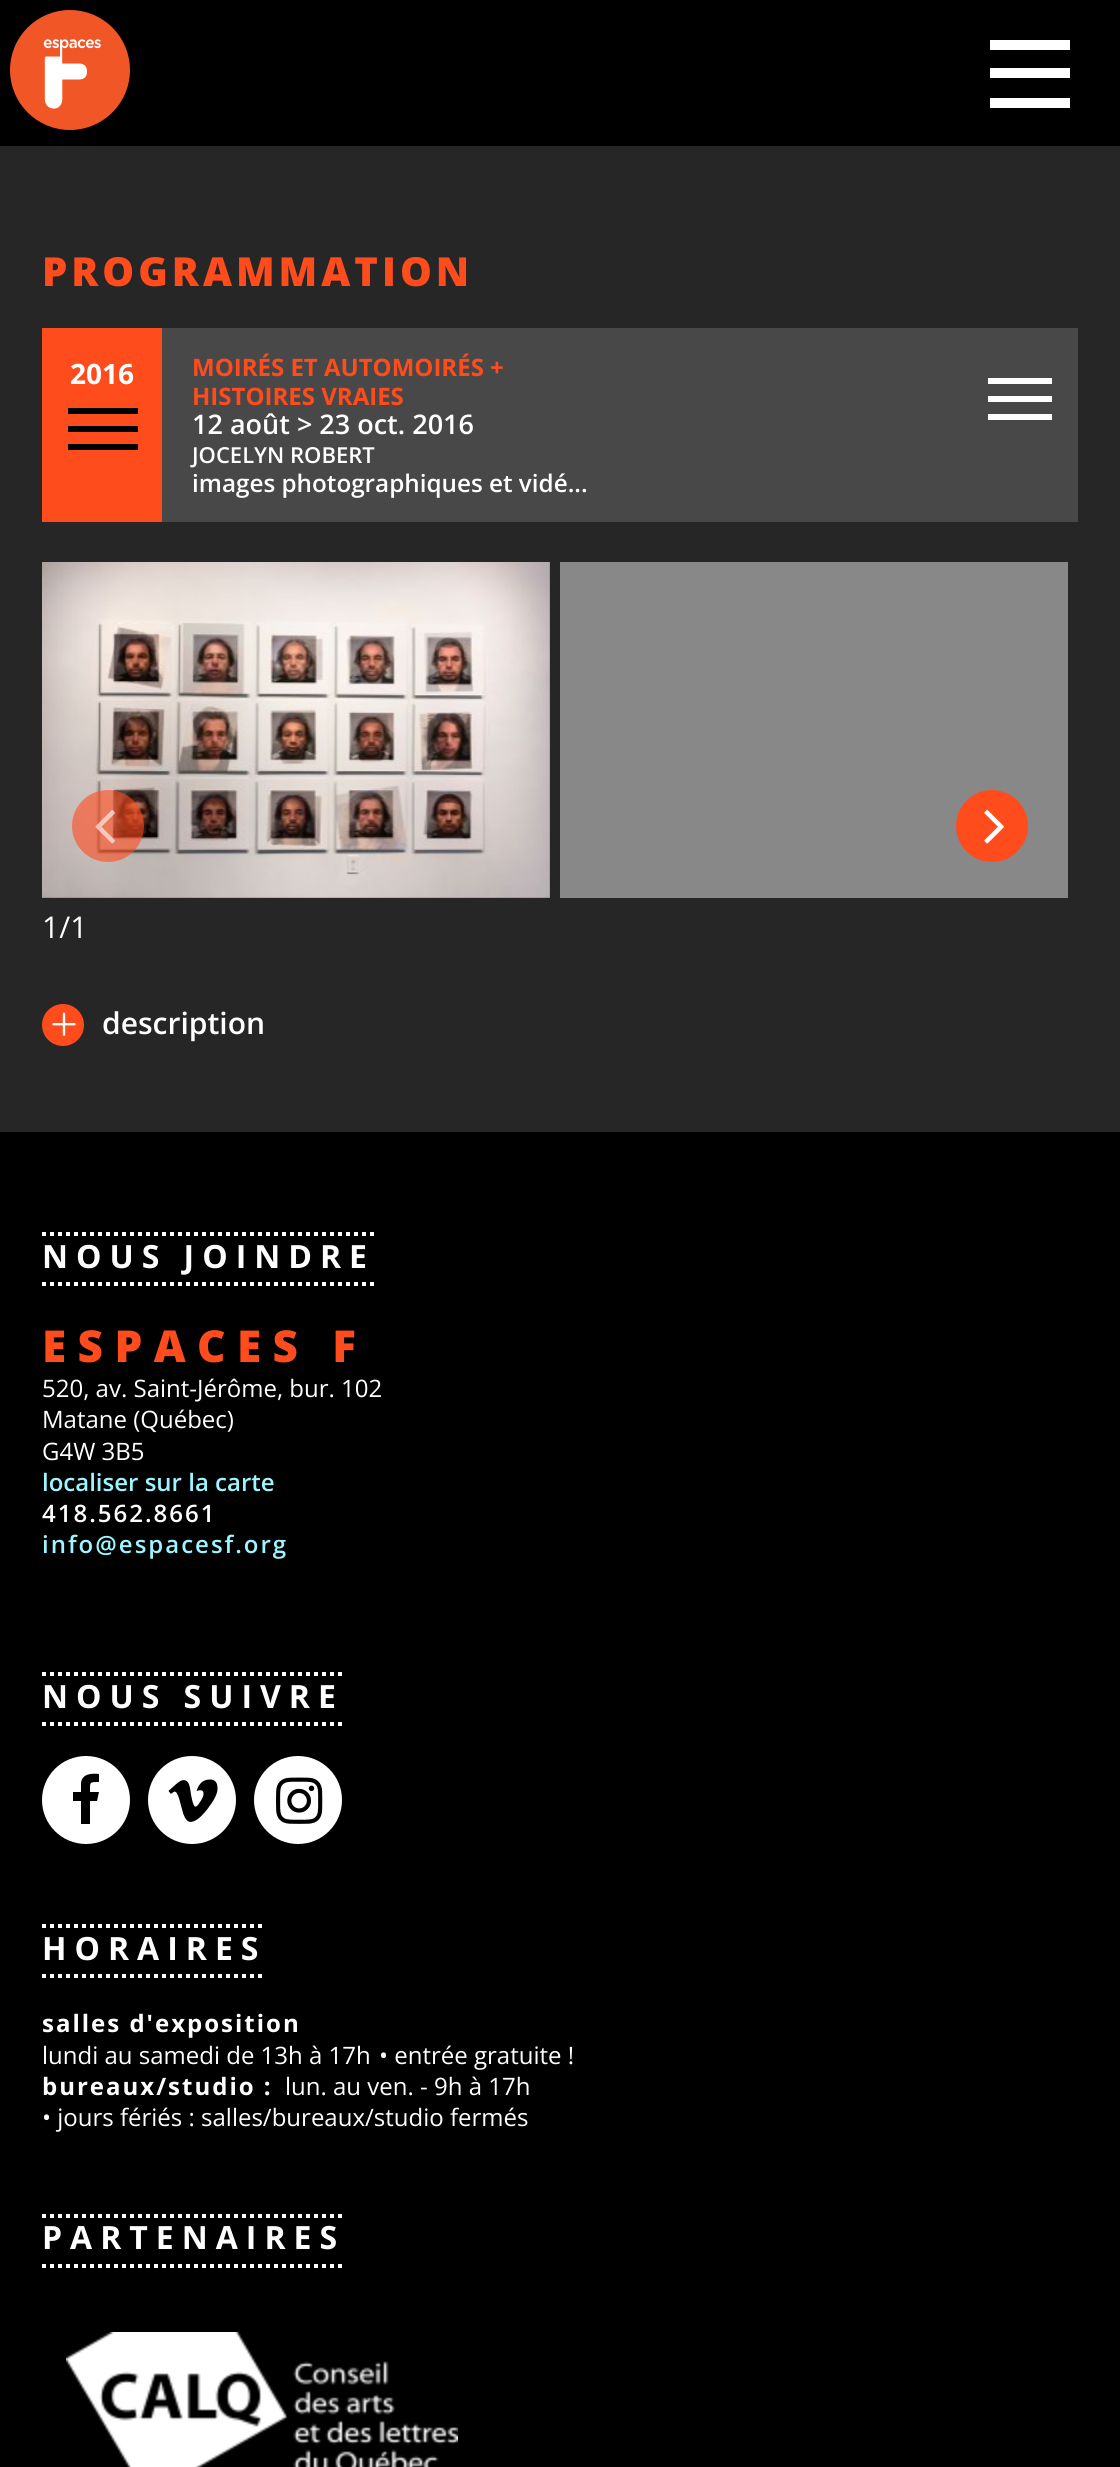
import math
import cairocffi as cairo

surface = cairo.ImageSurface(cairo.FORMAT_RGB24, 1120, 2467)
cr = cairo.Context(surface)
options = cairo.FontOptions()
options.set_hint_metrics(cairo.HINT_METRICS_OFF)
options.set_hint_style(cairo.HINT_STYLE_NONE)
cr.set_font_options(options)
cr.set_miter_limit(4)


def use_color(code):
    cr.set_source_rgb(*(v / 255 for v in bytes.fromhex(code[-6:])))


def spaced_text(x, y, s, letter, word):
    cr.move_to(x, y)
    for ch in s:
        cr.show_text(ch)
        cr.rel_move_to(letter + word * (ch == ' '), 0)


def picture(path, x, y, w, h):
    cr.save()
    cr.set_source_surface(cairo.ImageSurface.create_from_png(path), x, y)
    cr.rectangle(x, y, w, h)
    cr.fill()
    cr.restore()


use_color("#000000")
cr.paint()
picture("img1.png", 10, 10, 120, 120)
use_color("#ffffff")
cr.rectangle(990, 98, 80, 10)
cr.fill()
cr.rectangle(990, 68, 80, 10)
cr.fill()
cr.rectangle(990, 40, 80, 10)
cr.fill()
use_color("#262626")
cr.rectangle(0, 146, 1120, 986)
cr.fill()
cr.select_font_face("Open Sans ExtraBold")
cr.set_font_size(40)
use_color("#ff4c1d")
spaced_text(42, 286, "PROGRAMMATION", 4, 0)
cr.rectangle(42, 328, 120, 194)
cr.fill()
cr.select_font_face("Open Sans", cairo.FONT_SLANT_NORMAL, cairo.FONT_WEIGHT_BOLD)
cr.set_font_size(28)
use_color("#ffffff")
cr.move_to(70, 384)
cr.show_text("2016")
use_color("#000000")
cr.rectangle(68, 444, 70, 6)
cr.fill()
cr.rectangle(68, 426, 70, 6)
cr.fill()
cr.rectangle(68, 408, 70, 6)
cr.fill()
use_color("#484848")
cr.rectangle(162, 328, 916, 194)
cr.fill()
cr.set_font_size(24)
use_color("#ff4c1d")
cr.move_to(192, 376)
cr.show_text("MOIRÉS ET AUTOMOIRÉS +")
cr.move_to(192, 405)
cr.show_text("HISTOIRES VRAIES")
cr.select_font_face("Open Sans SemiBold")
cr.set_font_size(27)
use_color("#ffffff")
cr.move_to(192, 434)
cr.show_text("12 août > 23 oct. 2016")
cr.set_font_size(22)
cr.move_to(192, 463)
cr.show_text("JOCELYN ROBERT")
cr.set_font_size(24.25)
cr.move_to(192, 492)
cr.show_text("images photographiques et vidé...")
cr.rectangle(988, 414, 64, 6)
cr.fill()
cr.rectangle(988, 396, 64, 6)
cr.fill()
cr.rectangle(988, 378, 64, 6)
cr.fill()
picture("img2.png", 42, 562, 508, 336)
use_color("#888888")
cr.rectangle(560, 562, 508, 336)
cr.fill()
cr.set_source_rgba(1, 0.298, 0.114, 0.6)
cr.arc(108, 826, 36, 0, 2 * math.pi)
cr.fill()
picture("img3.png", 95, 810, 20, 34)
use_color("#ff4c1d")
cr.arc(992, 826, 36, 0, 2 * math.pi)
cr.fill()
picture("img4.png", 984, 810, 20, 34)
cr.select_font_face("Open Sans")
cr.set_font_size(30)
use_color("#ffffff")
cr.move_to(42, 938)
cr.show_text("1/1")
use_color("#ff4c1d")
cr.new_path()
cr.arc(63, 1025, 21, 0, 2 * math.pi)
cr.fill()
picture("img5.png", 52, 1012, 24, 24)
cr.select_font_face("Open Sans SemiBold")
use_color("#ffffff")
cr.move_to(102, 1034)
cr.show_text("description")
cr.new_path()
cr.move_to(42, 1234)
cr.line_to(376, 1234)
cr.set_line_width(4)
cr.set_dash([4, 4])
cr.stroke()
cr.new_path()
cr.move_to(42, 1284)
cr.line_to(376, 1284)
cr.stroke()
cr.select_font_face("Open Sans", cairo.FONT_SLANT_NORMAL, cairo.FONT_WEIGHT_BOLD)
cr.set_font_size(32)
spaced_text(42, 1268, "NOUS JOINDRE", 8, 0)
cr.select_font_face("Open Sans ExtraBold")
cr.set_font_size(44)
use_color("#ff4c1d")
cr.move_to(42, 1362)
cr.show_text("E S P A C E S   F")
cr.select_font_face("Open Sans")
cr.set_font_size(24)
use_color("#ffffff")
cr.move_to(42, 1397)
cr.show_text("520, av. Saint-Jérôme, bur. 102")
cr.move_to(42, 1428)
cr.show_text("Matane (Québec)")
cr.move_to(42, 1460)
cr.show_text("G4W 3B5")
cr.select_font_face("Open Sans SemiBold")
use_color("#9df5ff")
cr.move_to(42, 1491)
cr.show_text("localiser sur la carte")
use_color("#ffffff")
spaced_text(42, 1522, "418.562.8661", 2, 0)
use_color("#9df5ff")
spaced_text(42, 1553, "info@espacesf.org", 2, 0)
cr.new_path()
cr.move_to(42, 1674)
cr.line_to(344, 1674)
use_color("#ffffff")
cr.stroke()
cr.new_path()
cr.move_to(42, 1724)
cr.line_to(344, 1724)
cr.stroke()
cr.select_font_face("Open Sans", cairo.FONT_SLANT_NORMAL, cairo.FONT_WEIGHT_BOLD)
cr.set_font_size(32)
spaced_text(42, 1708, "NOUS SUIVRE", 8, 0)
cr.new_path()
cr.arc(86, 1800, 44, 0, 2 * math.pi)
cr.fill()
use_color("#000000")
cr.new_path()
cr.move_to(99, 1774)
cr.line_to(99, 1782)
cr.curve_to(89, 1782, 90, 1782, 90, 1792)
cr.line_to(99, 1792)
cr.line_to(97, 1801)
cr.line_to(90, 1801)
cr.line_to(90, 1824)
cr.line_to(81, 1824)
cr.line_to(81, 1801)
cr.line_to(73, 1801)
cr.line_to(73, 1792)
cr.line_to(81, 1792)
cr.line_to(81, 1783)
cr.curve_to(82, 1774, 91, 1773, 99, 1774)
cr.close_path()
cr.fill()
use_color("#ffffff")
cr.arc(192, 1800, 44, 0, 2 * math.pi)
cr.fill()
picture("img6.png", 168, 1779, 50, 43)
cr.arc(298, 1800, 44, 0, 2 * math.pi)
cr.fill()
picture("img7.png", 276, 1777, 47, 47)
cr.new_path()
cr.move_to(42, 1926)
cr.line_to(266, 1926)
cr.stroke()
cr.new_path()
cr.move_to(42, 1976)
cr.line_to(266, 1976)
cr.stroke()
spaced_text(42, 1960, "HORAIRES", 8, 0)
cr.set_font_size(24)
spaced_text(42, 2032, "salles d'exposition", 2, 0)
cr.select_font_face("Open Sans")
cr.move_to(42, 2064)
cr.show_text("lundi au samedi de 13h à 17h")
cr.move_to(379, 2064)
cr.show_text("• entrée gratuite !")
cr.select_font_face("Open Sans", cairo.FONT_SLANT_NORMAL, cairo.FONT_WEIGHT_BOLD)
spaced_text(42, 2095, "bureaux/studio :", 2, 0)
cr.select_font_face("Open Sans")
cr.move_to(285, 2095)
cr.show_text("lun. au ven. - 9h à 17h")
cr.move_to(42, 2126)
cr.show_text("• jours fériés : salles/bureaux/studio fermés")
cr.new_path()
cr.move_to(42, 2216)
cr.line_to(346, 2216)
cr.stroke()
cr.new_path()
cr.move_to(42, 2266)
cr.line_to(346, 2266)
cr.stroke()
cr.select_font_face("Open Sans", cairo.FONT_SLANT_NORMAL, cairo.FONT_WEIGHT_BOLD)
cr.set_font_size(32)
spaced_text(42, 2249, "PARTENAIRES", 8, 0)
picture("img8.png", 66, 2332, 392, 135)
surface.write_to_png("result.png")
